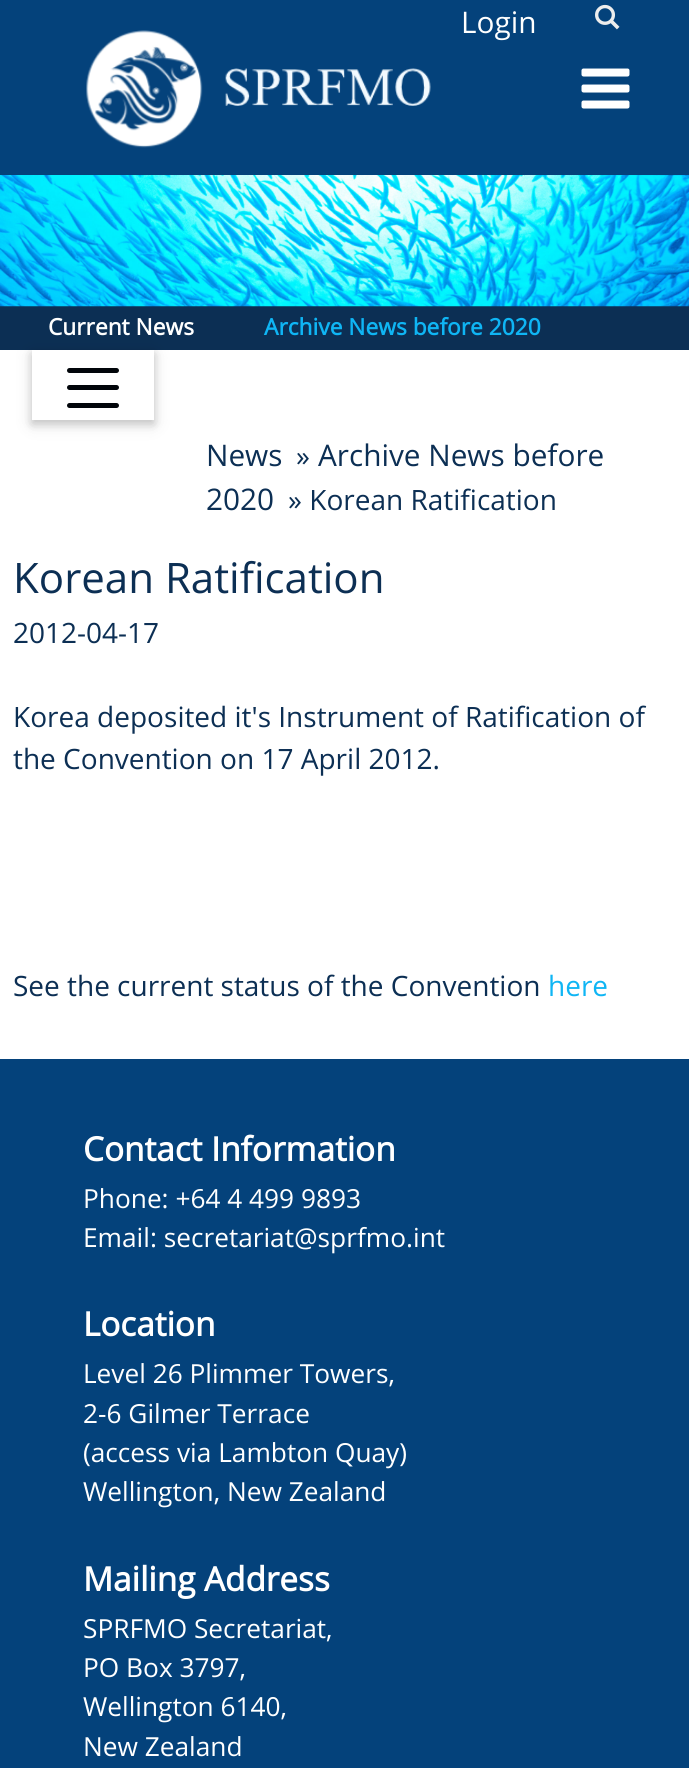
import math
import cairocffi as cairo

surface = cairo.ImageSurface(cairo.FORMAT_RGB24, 689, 1768)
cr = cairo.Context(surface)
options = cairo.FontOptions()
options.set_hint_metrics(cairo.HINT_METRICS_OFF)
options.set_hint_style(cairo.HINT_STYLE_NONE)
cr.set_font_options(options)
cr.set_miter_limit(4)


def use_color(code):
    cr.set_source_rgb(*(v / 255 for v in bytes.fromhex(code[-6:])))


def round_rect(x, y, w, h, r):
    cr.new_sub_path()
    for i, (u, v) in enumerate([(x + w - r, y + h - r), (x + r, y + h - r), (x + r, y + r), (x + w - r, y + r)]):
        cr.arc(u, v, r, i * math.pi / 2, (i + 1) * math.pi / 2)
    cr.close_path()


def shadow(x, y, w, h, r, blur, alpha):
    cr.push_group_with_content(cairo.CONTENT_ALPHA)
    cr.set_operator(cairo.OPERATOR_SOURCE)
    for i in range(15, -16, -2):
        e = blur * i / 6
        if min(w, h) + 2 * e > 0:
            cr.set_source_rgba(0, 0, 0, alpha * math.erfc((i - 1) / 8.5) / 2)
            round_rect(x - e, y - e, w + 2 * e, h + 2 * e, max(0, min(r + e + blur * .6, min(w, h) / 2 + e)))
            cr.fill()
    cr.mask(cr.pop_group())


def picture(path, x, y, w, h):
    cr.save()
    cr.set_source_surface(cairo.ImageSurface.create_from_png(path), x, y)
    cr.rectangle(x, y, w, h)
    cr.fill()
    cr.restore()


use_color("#ffffff")
cr.paint()
use_color("#04427b")
cr.rectangle(0, 0, 689, 175)
cr.fill()
cr.select_font_face("Open Sans")
cr.set_font_size(29.75)
use_color("#ffffff")
cr.move_to(461, 33)
cr.show_text("Login")
picture("img1.png", 595, 4, 25, 26)
picture("img2.png", 86, 30, 345, 118)
picture("img3.png", 581, 68, 49, 41)
use_color("#0c2f54")
cr.rectangle(0, 306, 689, 44)
cr.fill()
picture("img4.png", 0, 175, 689, 132)
cr.select_font_face("Open Sans", cairo.FONT_SLANT_NORMAL, cairo.FONT_WEIGHT_BOLD)
cr.set_font_size(22.75)
use_color("#ffffff")
cr.move_to(48, 335)
cr.show_text("Current News")
use_color("#0fb5f4")
cr.move_to(264, 335)
cr.show_text("Archive News before 2020")
cr.save()
cr.set_fill_rule(cairo.FILL_RULE_EVEN_ODD)
cr.new_path()
cr.move_to(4, 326)
cr.line_to(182, 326)
cr.line_to(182, 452)
cr.line_to(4, 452)
cr.close_path()
cr.move_to(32, 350)
cr.line_to(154, 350)
cr.line_to(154, 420)
cr.line_to(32, 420)
cr.close_path()
cr.clip()
use_color("#000000")
shadow(32, 354, 122, 70, 0, 9, 0.12)
cr.restore()
cr.save()
cr.set_fill_rule(cairo.FILL_RULE_EVEN_ODD)
cr.new_path()
cr.move_to(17, 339)
cr.line_to(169, 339)
cr.line_to(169, 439)
cr.line_to(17, 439)
cr.close_path()
cr.move_to(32, 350)
cr.line_to(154, 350)
cr.line_to(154, 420)
cr.line_to(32, 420)
cr.close_path()
cr.clip()
use_color("#000000")
shadow(32, 354, 122, 70, 0, 4.5, 0.16)
cr.restore()
use_color("#01050a")
round_rect(67, 368, 52, 5, 2.5)
cr.fill()
round_rect(67, 385, 52, 5, 2.5)
cr.fill()
round_rect(67, 403, 52, 5, 2.5)
cr.fill()
cr.select_font_face("Open Sans")
cr.set_font_size(29.75)
use_color("#0c2f54")
cr.move_to(206, 466)
cr.show_text("News")
cr.set_font_size(28)
cr.move_to(296, 466)
cr.show_text("»")
cr.set_font_size(29.75)
cr.move_to(318, 466)
cr.show_text("Archive News before")
cr.move_to(206, 510)
cr.show_text("2020")
cr.set_font_size(28)
cr.move_to(288, 510)
cr.show_text("» Korean Ratification")
cr.set_font_size(42)
cr.move_to(13, 593)
cr.show_text("Korean Ratification")
cr.set_font_size(28)
cr.move_to(13, 643)
cr.show_text("2012-04-17")
cr.move_to(13, 727)
cr.show_text("Korea deposited it's Instrument of Ratification of")
cr.move_to(13, 769)
cr.show_text("the Convention on 17 April 2012.")
cr.move_to(13, 996)
cr.show_text("See the current status of the Convention")
use_color("#0fb5f4")
cr.move_to(548, 996)
cr.show_text("here")
use_color("#04427b")
cr.rectangle(0, 1059, 689, 709)
cr.fill()
cr.select_font_face("Open Sans", cairo.FONT_SLANT_NORMAL, cairo.FONT_WEIGHT_BOLD)
cr.set_font_size(33.25)
use_color("#ffffff")
cr.move_to(83, 1161)
cr.show_text("Contact Information")
cr.select_font_face("Open Sans")
cr.set_font_size(26.25)
cr.move_to(83, 1208)
cr.show_text("Phone: +64 4 499 9893")
cr.move_to(83, 1247)
cr.show_text("Email: secretariat@sprfmo.int")
cr.select_font_face("Open Sans", cairo.FONT_SLANT_NORMAL, cairo.FONT_WEIGHT_BOLD)
cr.set_font_size(33.25)
cr.move_to(83, 1336)
cr.show_text("Location")
cr.select_font_face("Open Sans")
cr.set_font_size(26.25)
cr.move_to(83, 1383)
cr.show_text("Level 26 Plimmer Towers,")
cr.move_to(83, 1423)
cr.show_text("2-6 Gilmer Terrace")
cr.move_to(83, 1462)
cr.show_text("(access via Lambton Quay)")
cr.move_to(83, 1501)
cr.show_text("Wellington, New Zealand")
cr.select_font_face("Open Sans", cairo.FONT_SLANT_NORMAL, cairo.FONT_WEIGHT_BOLD)
cr.set_font_size(33.25)
cr.move_to(83, 1591)
cr.show_text("Mailing Address")
cr.select_font_face("Open Sans")
cr.set_font_size(26.25)
cr.move_to(83, 1638)
cr.show_text("SPRFMO Secretariat,")
cr.move_to(83, 1677)
cr.show_text("PO Box 3797,")
cr.move_to(83, 1716)
cr.show_text("Wellington 6140,")
cr.move_to(83, 1756)
cr.show_text("New Zealand")
surface.write_to_png("result.png")
